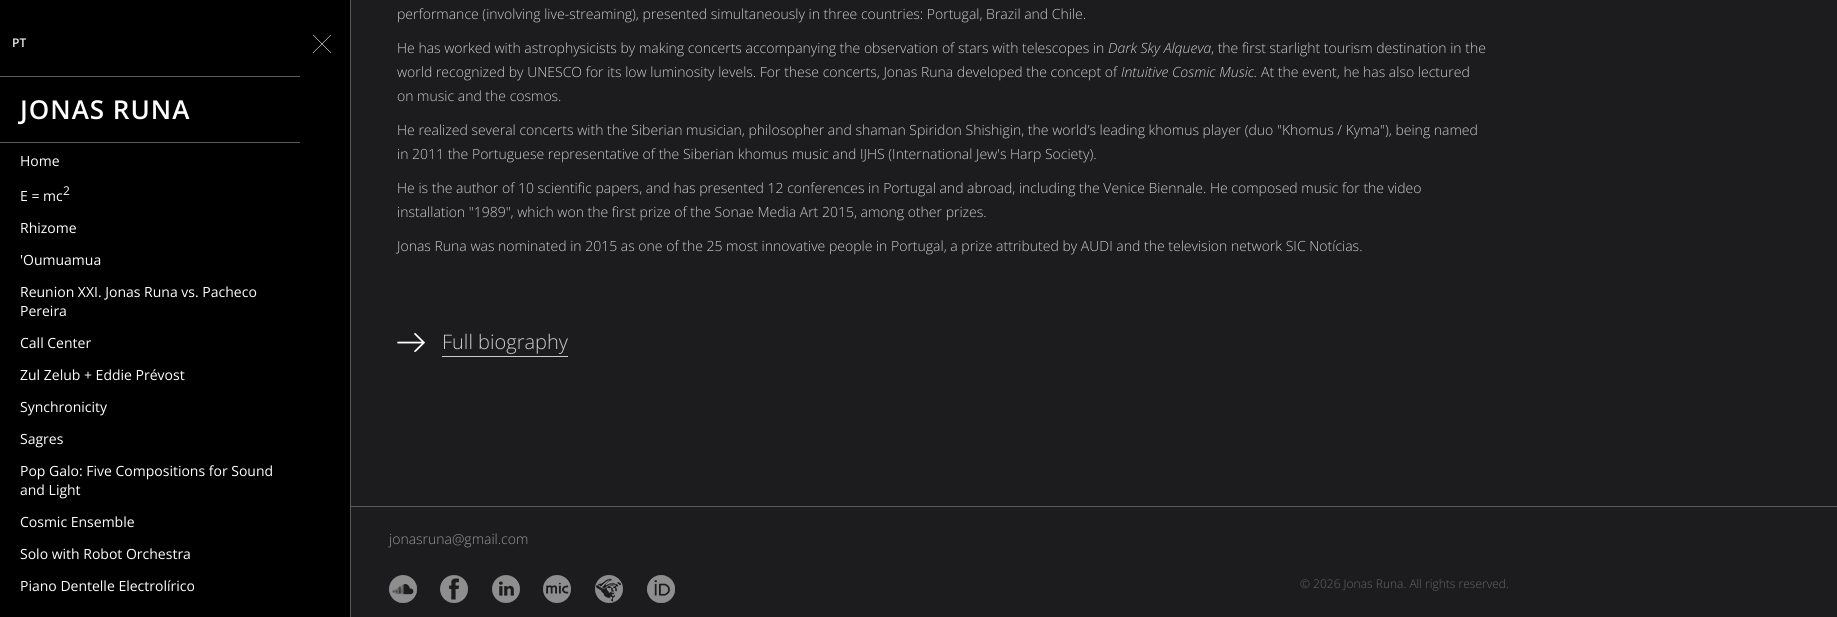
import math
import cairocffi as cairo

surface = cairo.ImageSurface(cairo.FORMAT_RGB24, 1837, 617)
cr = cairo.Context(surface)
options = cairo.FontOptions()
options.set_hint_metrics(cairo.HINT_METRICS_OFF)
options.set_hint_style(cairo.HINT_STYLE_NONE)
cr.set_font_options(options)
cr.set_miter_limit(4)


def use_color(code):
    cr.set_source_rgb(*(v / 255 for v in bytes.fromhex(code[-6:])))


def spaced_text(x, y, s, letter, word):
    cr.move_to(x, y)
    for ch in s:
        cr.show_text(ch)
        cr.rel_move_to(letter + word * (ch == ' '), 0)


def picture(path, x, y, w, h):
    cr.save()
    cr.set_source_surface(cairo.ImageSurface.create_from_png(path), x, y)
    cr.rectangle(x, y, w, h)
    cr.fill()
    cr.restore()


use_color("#1c1c1e")
cr.paint()
use_color("#000000")
cr.rectangle(0, 0, 350, 617)
cr.fill()
use_color("#5b5b5b")
cr.rectangle(350, 0, 1, 617)
cr.fill()
cr.select_font_face("Open Sans SemiBold")
cr.set_font_size(12)
use_color("#eaeaea")
cr.move_to(12, 47)
cr.show_text("PT")
use_color("#5b5b5b")
cr.rectangle(0, 76, 300, 1)
cr.fill()
cr.set_font_size(26)
use_color("#ffffff")
spaced_text(20, 119, "JONAS RUNA", 1, 0)
use_color("#5b5b5b")
cr.rectangle(0, 142, 300, 1)
cr.fill()
cr.select_font_face("Open Sans")
cr.set_font_size(14)
use_color("#ffffff")
cr.move_to(20, 166)
cr.show_text("Home")
cr.move_to(20, 201)
cr.show_text("E = mc")
cr.set_font_size(12)
cr.move_to(63, 195)
cr.show_text("2")
cr.set_font_size(14)
cr.move_to(20, 233)
cr.show_text("Rhizome")
cr.move_to(20, 265)
cr.show_text("'Oumuamua")
cr.move_to(20, 297)
cr.show_text("Reunion XXI. Jonas Runa vs. Pacheco")
cr.move_to(20, 316)
cr.show_text("Pereira")
cr.move_to(20, 348)
cr.show_text("Call Center")
cr.move_to(20, 380)
cr.show_text("Zul Zelub + Eddie Prévost")
cr.move_to(20, 412)
cr.show_text("Synchronicity")
cr.move_to(20, 444)
cr.show_text("Sagres")
cr.move_to(20, 476)
cr.show_text("Pop Galo: Five Compositions for Sound")
cr.move_to(20, 495)
cr.show_text("and Light")
cr.move_to(20, 527)
cr.show_text("Cosmic Ensemble")
cr.move_to(20, 559)
cr.show_text("Solo with Robot Orchestra")
cr.move_to(20, 591)
cr.show_text("Piano Dentelle Electrolírico")
picture("img1.png", 312, 35, 20, 18)
cr.select_font_face("Open Sans Light")
use_color("#cccccc")
cr.move_to(397, 19)
cr.show_text("performance (involving live-streaming), presented simultaneously in three countries: Portugal, Brazil and Chile.")
cr.move_to(397, 53)
cr.show_text("He has worked with astrophysicists by making concerts accompanying the observation of stars with telescopes in")
cr.select_font_face("Open Sans Light", cairo.FONT_SLANT_ITALIC)
cr.move_to(1108, 53)
cr.show_text("Dark Sky Alqueva")
cr.select_font_face("Open Sans Light")
cr.move_to(1211, 53)
cr.show_text(", the first starlight tourism destination in the")
cr.move_to(397, 77)
cr.show_text("world recognized by UNESCO for its low luminosity levels. For these concerts, Jonas Runa developed the concept of")
cr.select_font_face("Open Sans Light", cairo.FONT_SLANT_ITALIC)
cr.move_to(1121, 77)
cr.show_text("Intuitive Cosmic Music.")
cr.select_font_face("Open Sans Light")
cr.move_to(1261, 77)
cr.show_text("At the event, he has also lectured")
cr.move_to(397, 101)
cr.show_text("on music and the cosmos.")
cr.move_to(397, 135)
cr.show_text("He realized several concerts with the Siberian musician, philosopher and shaman Spiridon Shishigin, the world’s leading khomus player (duo \"Khomus / Kyma\"), being named")
cr.move_to(397, 159)
cr.show_text("in 2011 the Portuguese representative of the Siberian khomus music and IJHS (International Jew's Harp Society).")
cr.move_to(397, 193)
cr.show_text("He is the author of 10 scientific papers, and has presented 12 conferences in Portugal and abroad, including the Venice Biennale. He composed music for the video")
cr.move_to(397, 217)
cr.show_text("installation \"1989\", which won the first prize of the Sonae Media Art 2015, among other prizes.")
cr.move_to(397, 251)
cr.show_text("Jonas Runa was nominated in 2015 as one of the 25 most innovative people in Portugal, a prize attributed by AUDI and the television network SIC Notícias.")
picture("img2.png", 397, 333, 28, 19)
cr.set_font_size(20)
cr.move_to(442, 349)
cr.show_text("Full biography")
cr.rectangle(442, 356, 126, 1)
cr.fill()
use_color("#5b5b5b")
cr.rectangle(351, 506, 1486, 1)
cr.fill()
cr.set_font_size(14)
use_color("#999999")
cr.move_to(389, 544)
cr.show_text("jonasruna@gmail.com")
picture("img3.png", 389, 575, 28, 28)
picture("img4.png", 440, 575, 28, 28)
picture("img5.png", 492, 575, 28, 28)
picture("img6.png", 543, 575, 28, 28)
picture("img7.png", 595, 575, 28, 28)
picture("img8.png", 647, 575, 28, 28)
cr.set_font_size(12)
use_color("#656565")
cr.move_to(1300, 588)
cr.show_text("© 2026 Jonas Runa. All rights reserved.")
surface.write_to_png("result.png")
